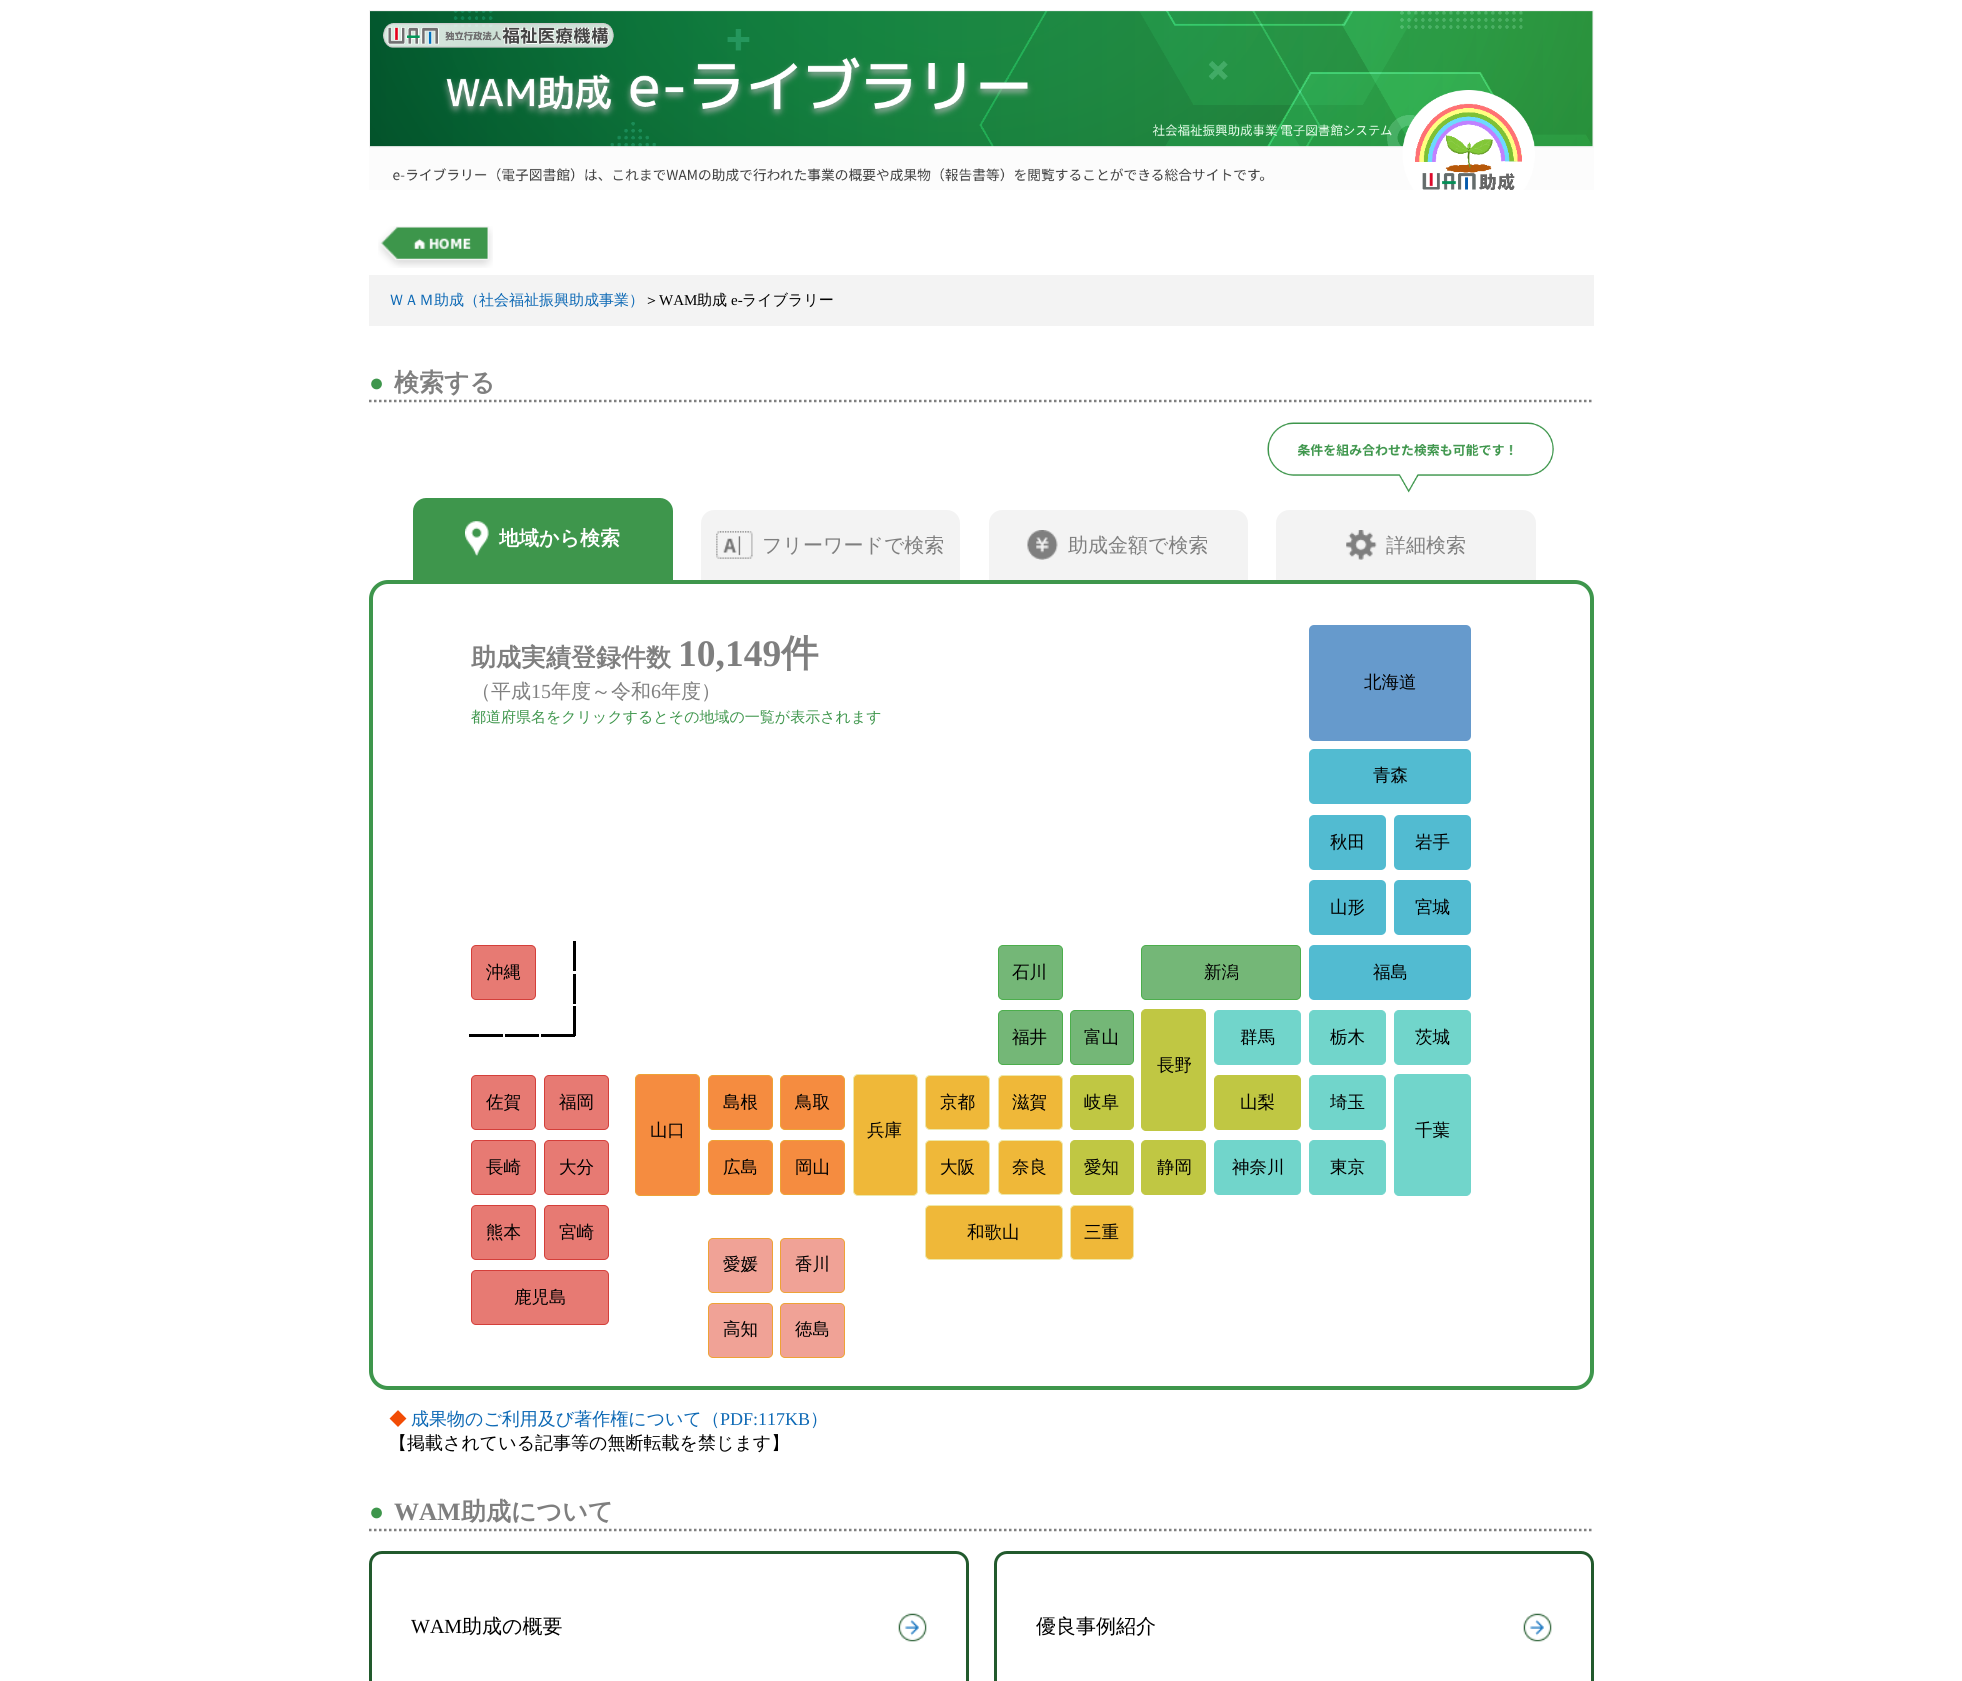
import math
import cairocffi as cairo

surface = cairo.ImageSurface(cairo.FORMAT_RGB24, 1962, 1681)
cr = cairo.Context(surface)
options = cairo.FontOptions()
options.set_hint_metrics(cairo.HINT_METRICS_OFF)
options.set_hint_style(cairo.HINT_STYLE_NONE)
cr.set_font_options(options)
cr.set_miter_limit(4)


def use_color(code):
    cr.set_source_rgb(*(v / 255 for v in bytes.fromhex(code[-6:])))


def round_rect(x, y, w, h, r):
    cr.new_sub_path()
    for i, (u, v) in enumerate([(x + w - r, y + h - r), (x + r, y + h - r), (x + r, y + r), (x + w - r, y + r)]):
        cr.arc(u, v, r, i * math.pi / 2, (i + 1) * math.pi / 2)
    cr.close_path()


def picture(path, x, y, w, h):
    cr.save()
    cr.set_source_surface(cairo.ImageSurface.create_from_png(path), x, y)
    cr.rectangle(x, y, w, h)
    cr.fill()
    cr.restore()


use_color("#ffffff")
cr.paint()
picture("img1.png", 369, 10, 1225, 180)
picture("img2.png", 378, 226, 115, 42)
use_color("#f3f3f3")
cr.rectangle(369, 275, 1225, 51)
cr.fill()
cr.select_font_face("WenQuanYi Zen Hei Medium")
cr.set_font_size(15)
use_color("#0d69b5")
cr.move_to(389, 305)
cr.show_text("ＷＡＭ助成（社会福祉振興助成事業）")
use_color("#000000")
cr.move_to(644, 305)
cr.show_text("＞")
cr.select_font_face("Liberation Serif")
cr.move_to(659, 305)
cr.show_text("WAM")
cr.select_font_face("WenQuanYi Zen Hei Medium")
cr.move_to(697, 305)
cr.show_text("助成")
cr.select_font_face("Liberation Serif")
cr.move_to(731, 305)
cr.show_text("e-")
cr.select_font_face("WenQuanYi Zen Hei Medium")
cr.move_to(742, 305)
cr.show_text("ライブラリー")
cr.new_path()
cr.move_to(369, 401)
cr.line_to(1594, 401)
use_color("#7f7f7f")
cr.set_line_width(2.5)
cr.set_dash([2.5, 2.5])
cr.stroke()
cr.select_font_face("Liberation Serif", cairo.FONT_SLANT_NORMAL, cairo.FONT_WEIGHT_BOLD)
cr.set_font_size(25)
use_color("#3e964c")
cr.move_to(369, 391)
cr.show_text("●")
cr.select_font_face("WenQuanYi Zen Hei", cairo.FONT_SLANT_NORMAL, cairo.FONT_WEIGHT_BOLD)
use_color("#7f7f7f")
cr.move_to(394, 391)
cr.show_text("検索する")
picture("img3.png", 1267, 422, 287, 71)
use_color("#3e964c")
cr.new_path()
cr.move_to(426, 498)
cr.line_to(660, 498)
cr.curve_to(667, 498, 673, 504, 673, 511)
cr.line_to(673, 580)
cr.line_to(413, 580)
cr.line_to(413, 511)
cr.curve_to(413, 504, 419, 498, 426, 498)
cr.close_path()
cr.fill()
picture("img4.png", 465, 521, 24, 35)
cr.set_font_size(20)
use_color("#ffffff")
cr.move_to(499, 545)
cr.show_text("地域から検索")
use_color("#f3f3f3")
cr.new_path()
cr.move_to(714, 510)
cr.line_to(947, 510)
cr.curve_to(954, 510, 960, 516, 960, 523)
cr.line_to(960, 580)
cr.line_to(701, 580)
cr.line_to(701, 523)
cr.curve_to(701, 516, 707, 510, 714, 510)
cr.close_path()
cr.fill()
picture("img5.png", 716, 531, 37, 28)
cr.select_font_face("WenQuanYi Zen Hei Medium")
use_color("#7f7f7f")
cr.move_to(762, 552)
cr.show_text("フリーワードで検索")
use_color("#f3f3f3")
cr.new_path()
cr.move_to(1002, 510)
cr.line_to(1235, 510)
cr.curve_to(1242, 510, 1248, 516, 1248, 523)
cr.line_to(1248, 580)
cr.line_to(989, 580)
cr.line_to(989, 523)
cr.curve_to(989, 516, 995, 510, 1002, 510)
cr.close_path()
cr.fill()
picture("img6.png", 1027, 530, 31, 30)
use_color("#7f7f7f")
cr.move_to(1068, 552)
cr.show_text("助成金額で検索")
use_color("#f3f3f3")
cr.new_path()
cr.move_to(1289, 510)
cr.line_to(1523, 510)
cr.curve_to(1530, 510, 1536, 516, 1536, 523)
cr.line_to(1536, 580)
cr.line_to(1276, 580)
cr.line_to(1276, 523)
cr.curve_to(1276, 516, 1282, 510, 1289, 510)
cr.close_path()
cr.fill()
picture("img7.png", 1346, 530, 31, 30)
use_color("#7f7f7f")
cr.move_to(1386, 552)
cr.show_text("詳細検索")
round_rect(371, 582, 1221, 806, 17)
use_color("#3e964c")
cr.set_line_width(4)
cr.set_dash([])
cr.stroke()
cr.select_font_face("WenQuanYi Zen Hei", cairo.FONT_SLANT_NORMAL, cairo.FONT_WEIGHT_BOLD)
cr.set_font_size(25)
use_color("#7f7f7f")
cr.move_to(471, 666)
cr.show_text("助成実績登録件数")
cr.select_font_face("Liberation Serif", cairo.FONT_SLANT_NORMAL, cairo.FONT_WEIGHT_BOLD)
cr.set_font_size(37.5)
cr.move_to(678, 666)
cr.show_text("10,149")
cr.select_font_face("WenQuanYi Zen Hei", cairo.FONT_SLANT_NORMAL, cairo.FONT_WEIGHT_BOLD)
cr.move_to(781, 666)
cr.show_text("件")
cr.select_font_face("WenQuanYi Zen Hei Medium")
cr.set_font_size(20)
cr.move_to(471, 698)
cr.show_text("（平成")
cr.select_font_face("Liberation Serif")
cr.move_to(531, 698)
cr.show_text("15")
cr.select_font_face("WenQuanYi Zen Hei Medium")
cr.move_to(551, 698)
cr.show_text("年度～令和")
cr.select_font_face("Liberation Serif")
cr.move_to(651, 698)
cr.show_text("6")
cr.select_font_face("WenQuanYi Zen Hei Medium")
cr.move_to(661, 698)
cr.show_text("年度）")
cr.set_font_size(15)
use_color("#3e964c")
cr.move_to(471, 722)
cr.show_text("都道府県名をクリックするとその地域の一覧が表示されます")
use_color("#669acc")
round_rect(1309, 625, 162, 116, 5)
cr.fill()
cr.set_font_size(17.5)
use_color("#000000")
cr.move_to(1364, 688)
cr.show_text("北海道")
use_color("#52bbd1")
round_rect(1309, 749, 162, 55, 5)
cr.fill()
use_color("#000000")
cr.move_to(1373, 781)
cr.show_text("青森")
use_color("#52bbd1")
round_rect(1309, 815, 77, 55, 5)
cr.fill()
use_color("#000000")
cr.move_to(1330, 848)
cr.show_text("秋田")
use_color("#52bbd1")
round_rect(1394, 815, 77, 55, 5)
cr.fill()
use_color("#000000")
cr.move_to(1415, 848)
cr.show_text("岩手")
use_color("#52bbd1")
round_rect(1309, 880, 77, 55, 5)
cr.fill()
use_color("#000000")
cr.move_to(1330, 913)
cr.show_text("山形")
use_color("#52bbd1")
round_rect(1394, 880, 77, 55, 5)
cr.fill()
use_color("#000000")
cr.move_to(1415, 913)
cr.show_text("宮城")
use_color("#e77a73")
round_rect(471.5, 945.5, 64, 54, 4.5)
cr.fill_preserve()
use_color("#d43f3a")
cr.set_line_width(1)
cr.stroke()
use_color("#000000")
cr.move_to(486, 978)
cr.show_text("沖縄")
cr.rectangle(573, 941, 3, 30)
cr.fill()
use_color("#74b777")
round_rect(998.5, 945.5, 64, 54, 4.5)
cr.fill_preserve()
use_color("#4cae4c")
cr.stroke()
use_color("#000000")
cr.move_to(1012, 978)
cr.show_text("石川")
use_color("#74b777")
round_rect(1141.5, 945.5, 159, 54, 4.5)
cr.fill_preserve()
use_color("#4cae4c")
cr.stroke()
use_color("#000000")
cr.move_to(1204, 978)
cr.show_text("新潟")
use_color("#52bbd1")
round_rect(1309, 945, 162, 55, 5)
cr.fill()
use_color("#000000")
cr.move_to(1373, 978)
cr.show_text("福島")
cr.rectangle(573, 974, 3, 30)
cr.fill()
cr.rectangle(469, 1034, 34, 3)
cr.fill()
cr.rectangle(505, 1034, 34, 3)
cr.fill()
cr.rectangle(573, 1006, 3, 30)
cr.fill()
cr.rectangle(541, 1034, 34, 3)
cr.fill()
use_color("#74b777")
round_rect(998.5, 1010.5, 64, 54, 4.5)
cr.fill_preserve()
use_color("#4cae4c")
cr.stroke()
use_color("#000000")
cr.move_to(1012, 1043)
cr.show_text("福井")
use_color("#74b777")
round_rect(1070.5, 1010.5, 63, 54, 4.5)
cr.fill_preserve()
use_color("#4cae4c")
cr.stroke()
use_color("#000000")
cr.move_to(1084, 1043)
cr.show_text("富山")
use_color("#71d5cb")
round_rect(1214.5, 1010.5, 86, 54, 4.5)
cr.fill_preserve()
cr.stroke()
use_color("#000000")
cr.move_to(1240, 1043)
cr.show_text("群馬")
use_color("#71d5cb")
round_rect(1309.5, 1010.5, 76, 54, 4.5)
cr.fill_preserve()
cr.stroke()
use_color("#000000")
cr.move_to(1330, 1043)
cr.show_text("栃木")
use_color("#71d5cb")
round_rect(1394.5, 1010.5, 76, 54, 4.5)
cr.fill_preserve()
cr.stroke()
use_color("#000000")
cr.move_to(1415, 1043)
cr.show_text("茨城")
use_color("#c0c743")
round_rect(1141.5, 1009.5, 64, 121, 4.5)
cr.fill_preserve()
cr.stroke()
use_color("#000000")
cr.move_to(1157, 1071)
cr.show_text("長野")
use_color("#e77a73")
round_rect(471.5, 1075.5, 64, 54, 4.5)
cr.fill_preserve()
use_color("#d43f3a")
cr.stroke()
use_color("#000000")
cr.move_to(486, 1108)
cr.show_text("佐賀")
use_color("#e77a73")
round_rect(544.5, 1075.5, 64, 54, 4.5)
cr.fill_preserve()
use_color("#d43f3a")
cr.stroke()
use_color("#000000")
cr.move_to(559, 1108)
cr.show_text("福岡")
use_color("#f58c40")
round_rect(708.5, 1075.5, 64, 54, 4.5)
cr.fill_preserve()
use_color("#eea236")
cr.stroke()
use_color("#000000")
cr.move_to(723, 1108)
cr.show_text("島根")
use_color("#f58c40")
round_rect(780.5, 1075.5, 64, 54, 4.5)
cr.fill_preserve()
use_color("#eea236")
cr.stroke()
use_color("#000000")
cr.move_to(795, 1108)
cr.show_text("鳥取")
use_color("#efb839")
round_rect(925.5, 1075.5, 64, 54, 4.5)
cr.fill_preserve()
use_color("#eee8aa")
cr.stroke()
use_color("#000000")
cr.move_to(940, 1108)
cr.show_text("京都")
use_color("#efb839")
round_rect(998.5, 1075.5, 64, 54, 4.5)
cr.fill_preserve()
use_color("#eee8aa")
cr.stroke()
use_color("#000000")
cr.move_to(1012, 1108)
cr.show_text("滋賀")
use_color("#c0c743")
round_rect(1070.5, 1075.5, 63, 54, 4.5)
cr.fill_preserve()
cr.stroke()
use_color("#000000")
cr.move_to(1084, 1108)
cr.show_text("岐阜")
use_color("#c0c743")
round_rect(1214.5, 1075.5, 86, 54, 4.5)
cr.fill_preserve()
cr.stroke()
use_color("#000000")
cr.move_to(1240, 1108)
cr.show_text("山梨")
use_color("#71d5cb")
round_rect(1309.5, 1075.5, 76, 54, 4.5)
cr.fill_preserve()
cr.stroke()
use_color("#000000")
cr.move_to(1330, 1108)
cr.show_text("埼玉")
use_color("#f58c40")
round_rect(635.5, 1074.5, 64, 121, 4.5)
cr.fill_preserve()
use_color("#eea236")
cr.stroke()
use_color("#000000")
cr.move_to(650, 1136)
cr.show_text("山口")
use_color("#efb839")
round_rect(853.5, 1074.5, 64, 121, 4.5)
cr.fill_preserve()
use_color("#eee8aa")
cr.stroke()
use_color("#000000")
cr.move_to(867, 1136)
cr.show_text("兵庫")
use_color("#71d5cb")
round_rect(1394.5, 1074.5, 76, 121, 4.5)
cr.fill_preserve()
cr.stroke()
use_color("#000000")
cr.move_to(1415, 1136)
cr.show_text("千葉")
use_color("#e77a73")
round_rect(471.5, 1140.5, 64, 54, 4.5)
cr.fill_preserve()
use_color("#d43f3a")
cr.stroke()
use_color("#000000")
cr.move_to(486, 1173)
cr.show_text("長崎")
use_color("#e77a73")
round_rect(544.5, 1140.5, 64, 54, 4.5)
cr.fill_preserve()
use_color("#d43f3a")
cr.stroke()
use_color("#000000")
cr.move_to(559, 1173)
cr.show_text("大分")
use_color("#f58c40")
round_rect(708.5, 1140.5, 64, 54, 4.5)
cr.fill_preserve()
use_color("#eea236")
cr.stroke()
use_color("#000000")
cr.move_to(723, 1173)
cr.show_text("広島")
use_color("#f58c40")
round_rect(780.5, 1140.5, 64, 54, 4.5)
cr.fill_preserve()
use_color("#eea236")
cr.stroke()
use_color("#000000")
cr.move_to(795, 1173)
cr.show_text("岡山")
use_color("#efb839")
round_rect(925.5, 1140.5, 64, 54, 4.5)
cr.fill_preserve()
use_color("#eee8aa")
cr.stroke()
use_color("#000000")
cr.move_to(940, 1173)
cr.show_text("大阪")
use_color("#efb839")
round_rect(998.5, 1140.5, 64, 54, 4.5)
cr.fill_preserve()
use_color("#eee8aa")
cr.stroke()
use_color("#000000")
cr.move_to(1012, 1173)
cr.show_text("奈良")
use_color("#c0c743")
round_rect(1070.5, 1140.5, 63, 54, 4.5)
cr.fill_preserve()
cr.stroke()
use_color("#000000")
cr.move_to(1084, 1173)
cr.show_text("愛知")
use_color("#c0c743")
round_rect(1141.5, 1140.5, 64, 54, 4.5)
cr.fill_preserve()
cr.stroke()
use_color("#000000")
cr.move_to(1157, 1173)
cr.show_text("静岡")
use_color("#71d5cb")
round_rect(1214.5, 1140.5, 86, 54, 4.5)
cr.fill_preserve()
cr.stroke()
use_color("#000000")
cr.move_to(1232, 1173)
cr.show_text("神奈川")
use_color("#71d5cb")
round_rect(1309.5, 1140.5, 76, 54, 4.5)
cr.fill_preserve()
cr.stroke()
use_color("#000000")
cr.move_to(1330, 1173)
cr.show_text("東京")
use_color("#e77a73")
round_rect(471.5, 1205.5, 64, 54, 4.5)
cr.fill_preserve()
use_color("#d43f3a")
cr.stroke()
use_color("#000000")
cr.move_to(486, 1238)
cr.show_text("熊本")
use_color("#e77a73")
round_rect(544.5, 1205.5, 64, 54, 4.5)
cr.fill_preserve()
use_color("#d43f3a")
cr.stroke()
use_color("#000000")
cr.move_to(559, 1238)
cr.show_text("宮崎")
use_color("#efb839")
round_rect(925.5, 1205.5, 137, 54, 4.5)
cr.fill_preserve()
use_color("#eee8aa")
cr.stroke()
use_color("#000000")
cr.move_to(967, 1238)
cr.show_text("和歌山")
use_color("#efb839")
round_rect(1070.5, 1205.5, 63, 54, 4.5)
cr.fill_preserve()
use_color("#eee8aa")
cr.stroke()
use_color("#000000")
cr.move_to(1084, 1238)
cr.show_text("三重")
use_color("#f0a296")
round_rect(708.5, 1238.5, 64, 54, 4.5)
cr.fill_preserve()
use_color("#eea236")
cr.stroke()
use_color("#000000")
cr.move_to(723, 1270)
cr.show_text("愛媛")
use_color("#f0a296")
round_rect(780.5, 1238.5, 64, 54, 4.5)
cr.fill_preserve()
use_color("#eea236")
cr.stroke()
use_color("#000000")
cr.move_to(795, 1270)
cr.show_text("香川")
use_color("#e77a73")
round_rect(471.5, 1270.5, 137, 54, 4.5)
cr.fill_preserve()
use_color("#d43f3a")
cr.stroke()
use_color("#000000")
cr.move_to(514, 1303)
cr.show_text("鹿児島")
use_color("#f0a296")
round_rect(708.5, 1303.5, 64, 54, 4.5)
cr.fill_preserve()
use_color("#eea236")
cr.stroke()
use_color("#000000")
cr.move_to(723, 1335)
cr.show_text("高知")
use_color("#f0a296")
round_rect(780.5, 1303.5, 64, 54, 4.5)
cr.fill_preserve()
use_color("#eea236")
cr.stroke()
use_color("#000000")
cr.move_to(795, 1335)
cr.show_text("徳島")
cr.set_font_size(18)
use_color("#f24c05")
cr.move_to(389, 1425)
cr.show_text("◆")
use_color("#0d69b5")
cr.move_to(411, 1425)
cr.show_text("成果物のご利用及び著作権について（")
cr.select_font_face("Liberation Serif")
cr.move_to(720, 1425)
cr.show_text("PDF:117KB")
cr.select_font_face("WenQuanYi Zen Hei Medium")
cr.move_to(810, 1425)
cr.show_text("）")
use_color("#000000")
cr.move_to(389, 1449)
cr.show_text("【掲載されている記事等の無断転載を禁じます】")
cr.new_path()
cr.move_to(369, 1530)
cr.line_to(1594, 1530)
use_color("#7f7f7f")
cr.set_line_width(2.5)
cr.set_dash([2.5, 2.5])
cr.stroke()
cr.select_font_face("Liberation Serif", cairo.FONT_SLANT_NORMAL, cairo.FONT_WEIGHT_BOLD)
cr.set_font_size(25)
use_color("#3e964c")
cr.move_to(369, 1520)
cr.show_text("●")
use_color("#7f7f7f")
cr.move_to(394, 1520)
cr.show_text("WAM")
cr.select_font_face("WenQuanYi Zen Hei", cairo.FONT_SLANT_NORMAL, cairo.FONT_WEIGHT_BOLD)
cr.move_to(461, 1520)
cr.show_text("助成について")
round_rect(370.5, 1552.5, 597, 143, 11.5)
use_color("#225a2d")
cr.set_line_width(3)
cr.set_dash([])
cr.stroke()
cr.select_font_face("Liberation Serif")
cr.set_font_size(20)
use_color("#000000")
cr.move_to(411, 1633)
cr.show_text("WAM")
cr.select_font_face("WenQuanYi Zen Hei Medium")
cr.move_to(462, 1633)
cr.show_text("助成の概要")
picture("img8.png", 898, 1613, 29, 29)
round_rect(995.5, 1552.5, 597, 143, 11.5)
use_color("#225a2d")
cr.stroke()
use_color("#000000")
cr.move_to(1036, 1633)
cr.show_text("優良事例紹介")
picture("img9.png", 1523, 1613, 29, 29)
surface.write_to_png("result.png")
